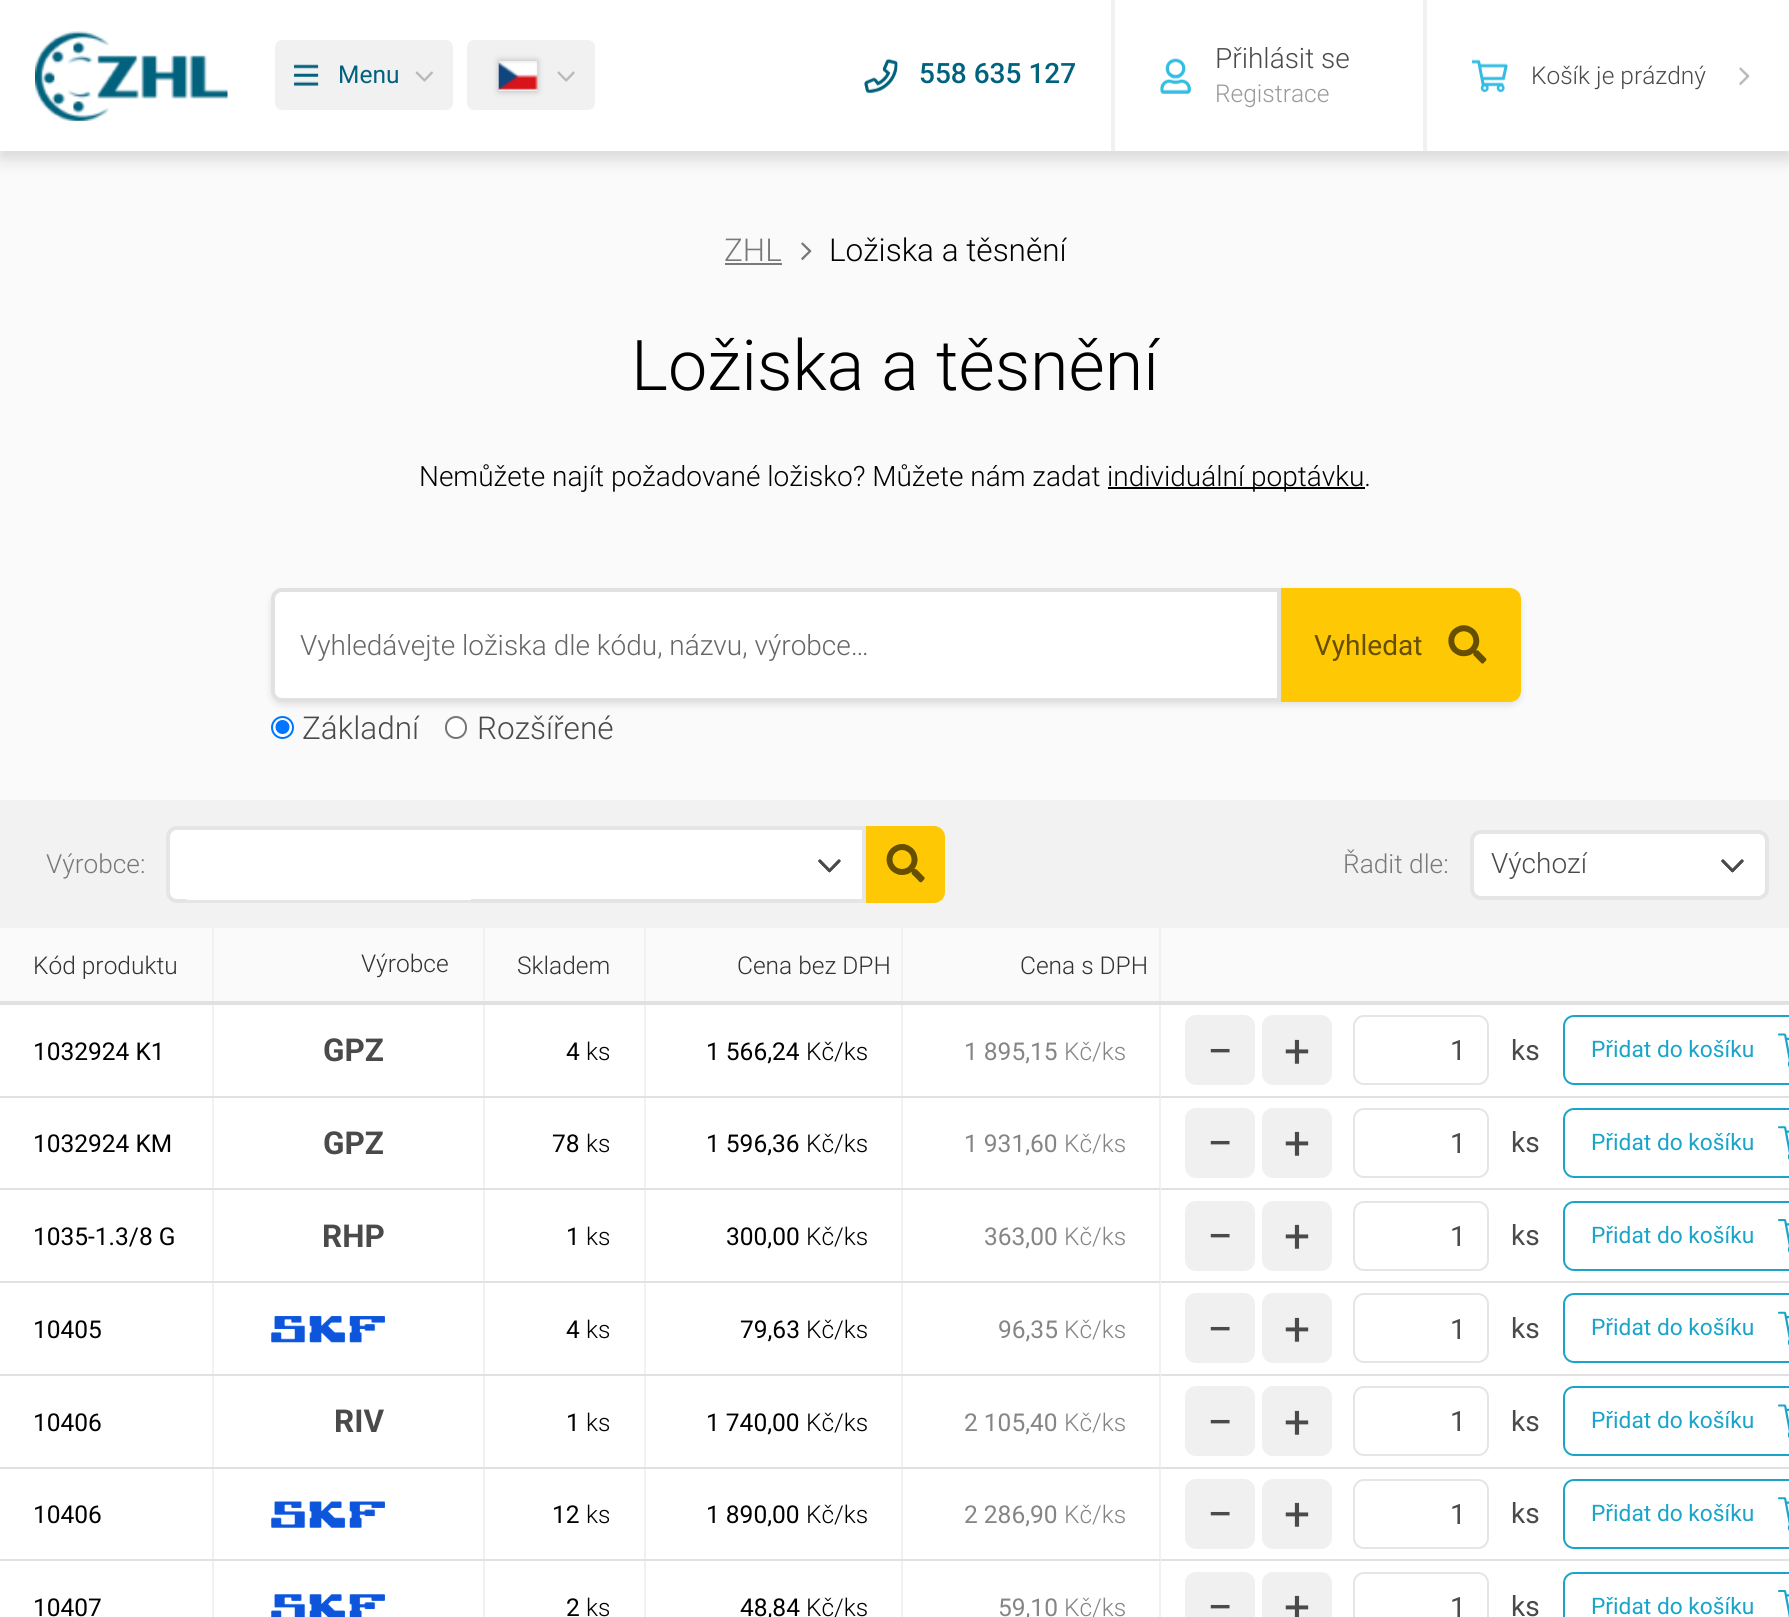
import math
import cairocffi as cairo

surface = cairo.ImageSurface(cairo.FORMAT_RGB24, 1789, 1617)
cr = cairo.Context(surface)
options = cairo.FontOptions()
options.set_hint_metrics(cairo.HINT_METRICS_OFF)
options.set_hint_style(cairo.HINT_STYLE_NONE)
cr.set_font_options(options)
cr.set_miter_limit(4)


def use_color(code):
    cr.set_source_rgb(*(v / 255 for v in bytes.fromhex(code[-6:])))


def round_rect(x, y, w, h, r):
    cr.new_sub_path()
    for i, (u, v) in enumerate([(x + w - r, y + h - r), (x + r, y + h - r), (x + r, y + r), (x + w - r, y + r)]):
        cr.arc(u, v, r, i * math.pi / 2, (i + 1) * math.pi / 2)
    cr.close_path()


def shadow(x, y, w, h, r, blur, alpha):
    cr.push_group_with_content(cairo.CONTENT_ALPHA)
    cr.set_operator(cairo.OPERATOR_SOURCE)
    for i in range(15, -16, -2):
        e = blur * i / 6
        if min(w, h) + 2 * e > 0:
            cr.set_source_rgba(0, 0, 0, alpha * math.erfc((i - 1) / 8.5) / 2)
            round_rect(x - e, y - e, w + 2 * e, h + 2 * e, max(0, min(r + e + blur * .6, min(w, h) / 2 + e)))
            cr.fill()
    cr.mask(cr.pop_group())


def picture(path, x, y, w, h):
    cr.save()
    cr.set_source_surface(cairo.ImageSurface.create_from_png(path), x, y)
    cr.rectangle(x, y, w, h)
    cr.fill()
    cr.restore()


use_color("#fafafa")
cr.paint()
use_color("#000000")
shadow(0, 7, 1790, 151, 0, 9, 0.15)
use_color("#ffffff")
cr.rectangle(0, 0, 1789, 151)
cr.fill()
picture("img1.png", 35, 31, 193, 90)
use_color("#f1f1f1")
round_rect(276, 41, 176, 68, 6)
cr.fill_preserve()
cr.stroke()
picture("img2.png", 294, 64, 25, 22)
cr.select_font_face("Roboto")
cr.set_font_size(24.5)
use_color("#00627d")
cr.move_to(338, 83)
cr.show_text("Menu")
picture("img3.png", 415, 71, 18, 11)
use_color("#f1f1f1")
round_rect(468, 41, 126, 68, 6)
cr.fill_preserve()
cr.stroke()
cr.save()
cr.set_fill_rule(cairo.FILL_RULE_EVEN_ODD)
cr.new_path()
cr.move_to(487, 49)
cr.line_to(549, 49)
cr.line_to(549, 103)
cr.line_to(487, 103)
cr.close_path()
cr.move_to(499, 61)
cr.line_to(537, 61)
cr.line_to(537, 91)
cr.line_to(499, 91)
cr.close_path()
cr.clip()
use_color("#000000")
shadow(499, 61, 38, 30, 0, 3.5, 0.25)
cr.restore()
picture("img4.png", 498, 62, 40, 28)
picture("img5.png", 557, 71, 18, 11)
cr.rectangle(1111, 0, 4, 151)
cr.fill()
picture("img6.png", 864, 58, 34, 35)
cr.select_font_face("Roboto Medium")
cr.set_font_size(28)
use_color("#00627d")
cr.move_to(919, 83)
cr.show_text("558 635 127")
use_color("#f1f1f1")
cr.rectangle(1423, 0, 4, 151)
cr.fill()
picture("img7.png", 1160, 58, 31, 36)
cr.select_font_face("Roboto Light")
use_color("#4a4a4a")
cr.move_to(1215, 68)
cr.show_text("Přihlásit se")
cr.set_font_size(24.5)
use_color("#999999")
cr.move_to(1215, 102)
cr.show_text("Registrace")
picture("img8.png", 1472, 59, 36, 34)
use_color("#4a4a4a")
cr.move_to(1531, 84)
cr.show_text("Košík je prázdný")
picture("img9.png", 1739, 66, 11, 20)
cr.set_font_size(31.5)
use_color("#797979")
cr.move_to(724, 261)
cr.show_text("ZHL")
cr.rectangle(725, 263, 57, 2)
cr.fill()
picture("img10.png", 801, 242, 11, 18)
use_color("#000000")
cr.move_to(829, 261)
cr.show_text("Ložiska a těsnění")
cr.set_font_size(70)
cr.move_to(631, 390)
cr.show_text("Ložiska a těsnění")
cr.set_font_size(28)
cr.move_to(419, 486)
cr.show_text("Nemůžete najít požadované ložisko? Můžete nám zadat")
cr.rectangle(1108, 487, 257, 2)
cr.fill()
cr.move_to(1107, 486)
cr.show_text("individuální poptávku.")
use_color("#ffffff")
cr.new_path()
cr.arc(282.5, 727.5, 10.5, 0, 2 * math.pi)
cr.fill_preserve()
use_color("#0075ff")
cr.stroke()
use_color("#ffffff")
round_rect(446, 717, 20, 21, 10)
cr.fill_preserve()
use_color("#767676")
cr.stroke()
use_color("#000000")
shadow(271, 592, 1250, 113, 11, 3.5, 0.1)
use_color("#ffffff")
cr.new_path()
cr.move_to(282, 590)
cr.line_to(1279, 590)
cr.line_to(1279, 700)
cr.line_to(282, 700)
cr.curve_to(277, 700, 273, 696, 273, 691)
cr.line_to(273, 599)
cr.curve_to(273, 594, 277, 590, 282, 590)
cr.close_path()
cr.fill_preserve()
use_color("#e2e1e1")
cr.set_line_width(4)
cr.stroke()
use_color("#666666")
cr.move_to(300, 655)
cr.show_text("Vyhledávejte ložiska dle kódu, názvu, výrobce…")
use_color("#ffc804")
cr.new_path()
cr.move_to(1281, 588)
cr.line_to(1510, 588)
cr.curve_to(1516, 588, 1521, 593, 1521, 599)
cr.line_to(1521, 691)
cr.curve_to(1521, 697, 1516, 702, 1510, 702)
cr.line_to(1281, 702)
cr.close_path()
cr.fill()
cr.select_font_face("Roboto")
use_color("#664f00")
cr.move_to(1314, 655)
cr.show_text("Vyhledat")
picture("img11.png", 1448, 625, 39, 39)
use_color("#0075ff")
cr.arc(282.5, 727, 7, 0, 2 * math.pi)
cr.fill()
cr.select_font_face("Roboto Light")
cr.set_font_size(31.5)
use_color("#4a4a4a")
cr.move_to(302, 739)
cr.show_text("Základní")
cr.move_to(477, 739)
cr.show_text("Rozšířené")
use_color("#f2f2f2")
cr.rectangle(0, 800, 1789, 128)
cr.fill()
cr.set_font_size(26.25)
use_color("#797979")
cr.move_to(46, 873)
cr.show_text("Výrobce:")
use_color("#ffffff")
cr.new_path()
cr.move_to(177, 828)
cr.line_to(864, 828)
cr.line_to(864, 901)
cr.line_to(177, 901)
cr.curve_to(172, 901, 168, 897, 168, 892)
cr.line_to(168, 837)
cr.curve_to(168, 832, 172, 828, 177, 828)
cr.close_path()
cr.fill_preserve()
use_color("#e5e5e5")
cr.stroke()
use_color("#ffffff")
cr.rectangle(187, 899, 284, 1)
cr.fill()
picture("img12.png", 818, 859, 23, 14)
picture("img13.png", 818, 859, 23, 14)
use_color("#ffc804")
cr.new_path()
cr.move_to(866, 826)
cr.line_to(934, 826)
cr.curve_to(940, 826, 945, 831, 945, 837)
cr.line_to(945, 892)
cr.curve_to(945, 898, 940, 903, 934, 903)
cr.line_to(866, 903)
cr.close_path()
cr.fill()
picture("img14.png", 886, 844, 39, 39)
use_color("#797979")
cr.move_to(1343, 873)
cr.show_text("Řadit dle:")
use_color("#ffffff")
round_rect(1472, 832, 295, 66, 9)
cr.fill_preserve()
use_color("#e5e5e5")
cr.stroke()
cr.set_font_size(28)
use_color("#4a4a4a")
cr.move_to(1491, 873)
cr.show_text("Výchozí")
picture("img12.png", 1721, 859, 23, 14)
picture("img13.png", 1721, 859, 23, 14)
use_color("#ffffff")
cr.rectangle(0, 1005, 1789, 612)
cr.fill()
cr.set_font_size(24.5)
use_color("#323232")
cr.move_to(33, 974)
cr.show_text("Kód produktu")
cr.move_to(361, 972)
cr.show_text("Výrobce")
cr.move_to(517, 974)
cr.show_text("Skladem")
cr.move_to(737, 974)
cr.show_text("Cena bez DPH")
cr.move_to(1020, 974)
cr.show_text("Cena s DPH")
use_color("#f1f1f1")
cr.rectangle(1159, 1559, 2, 58)
cr.fill()
use_color("#e1e1e1")
cr.rectangle(1159, 1559, 630, 2)
cr.fill()
use_color("#f1f1f1")
cr.rectangle(1159, 1467, 2, 94)
cr.fill()
use_color("#e1e1e1")
cr.rectangle(1159, 1467, 630, 2)
cr.fill()
use_color("#f1f1f1")
cr.rectangle(1159, 1374, 2, 94)
cr.fill()
use_color("#e1e1e1")
cr.rectangle(1159, 1374, 630, 2)
cr.fill()
use_color("#f1f1f1")
cr.rectangle(1159, 1281, 2, 95)
cr.fill()
use_color("#e1e1e1")
cr.rectangle(1159, 1281, 630, 2)
cr.fill()
use_color("#f1f1f1")
cr.rectangle(1159, 1188, 2, 95)
cr.fill()
use_color("#e1e1e1")
cr.rectangle(1159, 1188, 630, 2)
cr.fill()
use_color("#f1f1f1")
cr.rectangle(1159, 1096, 2, 94)
cr.fill()
use_color("#e1e1e1")
cr.rectangle(1159, 1096, 630, 2)
cr.fill()
use_color("#f1f1f1")
cr.rectangle(1159, 928, 2, 169)
cr.fill()
cr.rectangle(901, 1559, 2, 58)
cr.fill()
use_color("#e1e1e1")
cr.rectangle(901, 1559, 259, 2)
cr.fill()
use_color("#f1f1f1")
cr.rectangle(901, 1467, 2, 94)
cr.fill()
use_color("#e1e1e1")
cr.rectangle(901, 1467, 259, 2)
cr.fill()
use_color("#f1f1f1")
cr.rectangle(901, 1374, 2, 94)
cr.fill()
use_color("#e1e1e1")
cr.rectangle(901, 1374, 259, 2)
cr.fill()
use_color("#f1f1f1")
cr.rectangle(901, 1281, 2, 95)
cr.fill()
use_color("#e1e1e1")
cr.rectangle(901, 1281, 259, 2)
cr.fill()
use_color("#f1f1f1")
cr.rectangle(901, 1188, 2, 95)
cr.fill()
use_color("#e1e1e1")
cr.rectangle(901, 1188, 259, 2)
cr.fill()
use_color("#f1f1f1")
cr.rectangle(901, 1096, 2, 94)
cr.fill()
use_color("#e1e1e1")
cr.rectangle(901, 1096, 259, 2)
cr.fill()
use_color("#f1f1f1")
cr.rectangle(901, 928, 2, 169)
cr.fill()
cr.rectangle(644, 1559, 2, 58)
cr.fill()
use_color("#e1e1e1")
cr.rectangle(644, 1559, 259, 2)
cr.fill()
use_color("#f1f1f1")
cr.rectangle(644, 1467, 2, 94)
cr.fill()
use_color("#e1e1e1")
cr.rectangle(644, 1467, 259, 2)
cr.fill()
use_color("#f1f1f1")
cr.rectangle(644, 1374, 2, 94)
cr.fill()
use_color("#e1e1e1")
cr.rectangle(644, 1374, 259, 2)
cr.fill()
use_color("#f1f1f1")
cr.rectangle(644, 1281, 2, 95)
cr.fill()
use_color("#e1e1e1")
cr.rectangle(644, 1281, 259, 2)
cr.fill()
use_color("#f1f1f1")
cr.rectangle(644, 1188, 2, 95)
cr.fill()
use_color("#e1e1e1")
cr.rectangle(644, 1188, 259, 2)
cr.fill()
use_color("#f1f1f1")
cr.rectangle(644, 1096, 2, 94)
cr.fill()
use_color("#e1e1e1")
cr.rectangle(644, 1096, 259, 2)
cr.fill()
use_color("#f1f1f1")
cr.rectangle(644, 928, 2, 169)
cr.fill()
cr.rectangle(483, 1559, 2, 58)
cr.fill()
use_color("#e1e1e1")
cr.rectangle(483, 1559, 163, 2)
cr.fill()
use_color("#f1f1f1")
cr.rectangle(483, 1467, 2, 94)
cr.fill()
use_color("#e1e1e1")
cr.rectangle(483, 1467, 163, 2)
cr.fill()
use_color("#f1f1f1")
cr.rectangle(483, 1374, 2, 94)
cr.fill()
use_color("#e1e1e1")
cr.rectangle(483, 1374, 163, 2)
cr.fill()
use_color("#f1f1f1")
cr.rectangle(483, 1281, 2, 95)
cr.fill()
use_color("#e1e1e1")
cr.rectangle(483, 1281, 163, 2)
cr.fill()
use_color("#f1f1f1")
cr.rectangle(483, 1188, 2, 95)
cr.fill()
use_color("#e1e1e1")
cr.rectangle(483, 1188, 163, 2)
cr.fill()
use_color("#f1f1f1")
cr.rectangle(483, 1096, 2, 94)
cr.fill()
use_color("#e1e1e1")
cr.rectangle(483, 1096, 163, 2)
cr.fill()
use_color("#f1f1f1")
cr.rectangle(483, 928, 2, 169)
cr.fill()
cr.rectangle(212, 1559, 2, 58)
cr.fill()
use_color("#e1e1e1")
cr.rectangle(212, 1559, 273, 2)
cr.fill()
use_color("#f1f1f1")
cr.rectangle(212, 1467, 2, 94)
cr.fill()
use_color("#e1e1e1")
cr.rectangle(212, 1467, 273, 2)
cr.fill()
use_color("#f1f1f1")
cr.rectangle(212, 1374, 2, 94)
cr.fill()
use_color("#e1e1e1")
cr.rectangle(212, 1374, 273, 2)
cr.fill()
use_color("#f1f1f1")
cr.rectangle(212, 1281, 2, 95)
cr.fill()
use_color("#e1e1e1")
cr.rectangle(212, 1281, 273, 2)
cr.fill()
use_color("#f1f1f1")
cr.rectangle(212, 1188, 2, 95)
cr.fill()
use_color("#e1e1e1")
cr.rectangle(212, 1188, 273, 2)
cr.fill()
use_color("#f1f1f1")
cr.rectangle(212, 1096, 2, 94)
cr.fill()
use_color("#e1e1e1")
cr.rectangle(212, 1096, 273, 2)
cr.fill()
use_color("#f1f1f1")
cr.rectangle(212, 928, 2, 169)
cr.fill()
use_color("#e1e1e1")
cr.rectangle(0, 1001, 1789, 4)
cr.fill()
cr.rectangle(0, 1096, 214, 2)
cr.fill()
cr.select_font_face("Roboto")
use_color("#000000")
cr.move_to(33, 1060)
cr.show_text("1032924 K1")
cr.select_font_face("Roboto", cairo.FONT_SLANT_NORMAL, cairo.FONT_WEIGHT_BOLD)
cr.set_font_size(31.5)
use_color("#4a4a4a")
cr.move_to(323, 1061)
cr.show_text("GPZ")
cr.select_font_face("Roboto")
cr.set_font_size(24.5)
use_color("#000000")
cr.move_to(566, 1060)
cr.show_text("4")
cr.select_font_face("Roboto Light")
cr.move_to(586, 1060)
cr.show_text("ks")
cr.select_font_face("Roboto")
cr.move_to(706, 1060)
cr.show_text("1 566,24")
cr.select_font_face("Roboto Light")
cr.move_to(806, 1060)
cr.show_text("Kč/ks")
cr.select_font_face("Roboto")
use_color("#858585")
cr.move_to(964, 1060)
cr.show_text("1 895,15")
cr.select_font_face("Roboto Light")
cr.move_to(1064, 1060)
cr.show_text("Kč/ks")
use_color("#f0f0f0")
round_rect(1185, 1015, 70, 70, 11)
cr.fill()
cr.select_font_face("Roboto")
cr.set_font_size(46)
use_color("#4a4a4a")
cr.move_to(1207, 1067)
cr.show_text("−")
use_color("#f0f0f0")
round_rect(1262, 1015, 70, 70, 11)
cr.fill()
use_color("#4a4a4a")
cr.move_to(1284, 1067)
cr.show_text("+")
round_rect(1354, 1016, 134, 68, 10)
use_color("#e5e5e5")
cr.set_line_width(2)
cr.stroke()
cr.set_font_size(28)
use_color("#4a4a4a")
cr.move_to(1450, 1060)
cr.show_text("1")
cr.move_to(1511, 1060)
cr.show_text("ks")
round_rect(1564, 1016, 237, 68, 10)
use_color("#1ba4ca")
cr.stroke()
cr.set_font_size(22.75)
cr.move_to(1591, 1057)
cr.show_text("Přidat do košíku")
picture("img15.png", 1778, 1033, 11, 34)
use_color("#e1e1e1")
cr.rectangle(0, 1188, 214, 2)
cr.fill()
cr.set_font_size(24.5)
use_color("#000000")
cr.move_to(33, 1152)
cr.show_text("1032924 KM")
cr.select_font_face("Roboto", cairo.FONT_SLANT_NORMAL, cairo.FONT_WEIGHT_BOLD)
cr.set_font_size(31.5)
use_color("#4a4a4a")
cr.move_to(323, 1154)
cr.show_text("GPZ")
cr.select_font_face("Roboto")
cr.set_font_size(24.5)
use_color("#000000")
cr.move_to(552, 1152)
cr.show_text("78")
cr.select_font_face("Roboto Light")
cr.move_to(586, 1152)
cr.show_text("ks")
cr.select_font_face("Roboto")
cr.move_to(706, 1152)
cr.show_text("1 596,36")
cr.select_font_face("Roboto Light")
cr.move_to(806, 1152)
cr.show_text("Kč/ks")
cr.select_font_face("Roboto")
use_color("#858585")
cr.move_to(964, 1152)
cr.show_text("1 931,60")
cr.select_font_face("Roboto Light")
cr.move_to(1064, 1152)
cr.show_text("Kč/ks")
use_color("#f0f0f0")
round_rect(1185, 1108, 70, 70, 11)
cr.fill()
cr.select_font_face("Roboto")
cr.set_font_size(46)
use_color("#4a4a4a")
cr.move_to(1207, 1159)
cr.show_text("−")
use_color("#f0f0f0")
round_rect(1262, 1108, 70, 70, 11)
cr.fill()
use_color("#4a4a4a")
cr.move_to(1284, 1159)
cr.show_text("+")
round_rect(1354, 1109, 134, 68, 10)
use_color("#e5e5e5")
cr.stroke()
cr.set_font_size(28)
use_color("#4a4a4a")
cr.move_to(1450, 1153)
cr.show_text("1")
cr.move_to(1511, 1152)
cr.show_text("ks")
round_rect(1564, 1109, 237, 68, 10)
use_color("#1ba4ca")
cr.stroke()
cr.set_font_size(22.75)
cr.move_to(1591, 1150)
cr.show_text("Přidat do košíku")
picture("img16.png", 1778, 1126, 11, 34)
use_color("#e1e1e1")
cr.rectangle(0, 1281, 214, 2)
cr.fill()
cr.set_font_size(24.5)
use_color("#000000")
cr.move_to(33, 1245)
cr.show_text("1035-1.3/8 G")
cr.select_font_face("Roboto", cairo.FONT_SLANT_NORMAL, cairo.FONT_WEIGHT_BOLD)
cr.set_font_size(31.5)
use_color("#4a4a4a")
cr.move_to(322, 1247)
cr.show_text("RHP")
cr.select_font_face("Roboto")
cr.set_font_size(24.5)
use_color("#000000")
cr.move_to(566, 1245)
cr.show_text("1")
cr.select_font_face("Roboto Light")
cr.move_to(586, 1245)
cr.show_text("ks")
cr.select_font_face("Roboto")
cr.move_to(726, 1245)
cr.show_text("300,00")
cr.select_font_face("Roboto Light")
cr.move_to(806, 1245)
cr.show_text("Kč/ks")
cr.select_font_face("Roboto")
use_color("#858585")
cr.move_to(984, 1245)
cr.show_text("363,00")
cr.select_font_face("Roboto Light")
cr.move_to(1064, 1245)
cr.show_text("Kč/ks")
use_color("#f0f0f0")
round_rect(1185, 1201, 70, 70, 11)
cr.fill()
cr.select_font_face("Roboto")
cr.set_font_size(46)
use_color("#4a4a4a")
cr.move_to(1207, 1252)
cr.show_text("−")
use_color("#f0f0f0")
round_rect(1262, 1201, 70, 70, 11)
cr.fill()
use_color("#4a4a4a")
cr.move_to(1284, 1252)
cr.show_text("+")
round_rect(1354, 1202, 134, 68, 10)
use_color("#e5e5e5")
cr.stroke()
cr.set_font_size(28)
use_color("#4a4a4a")
cr.move_to(1450, 1246)
cr.show_text("1")
cr.move_to(1511, 1245)
cr.show_text("ks")
round_rect(1564, 1202, 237, 68, 10)
use_color("#1ba4ca")
cr.stroke()
cr.set_font_size(22.75)
cr.move_to(1591, 1243)
cr.show_text("Přidat do košíku")
picture("img17.png", 1778, 1219, 11, 34)
use_color("#e1e1e1")
cr.rectangle(0, 1374, 214, 2)
cr.fill()
cr.set_font_size(24.5)
use_color("#000000")
cr.move_to(33, 1338)
cr.show_text("10405")
picture("img18.png", 271, 1316, 114, 27)
cr.move_to(566, 1338)
cr.show_text("4")
cr.select_font_face("Roboto Light")
cr.move_to(586, 1338)
cr.show_text("ks")
cr.select_font_face("Roboto")
cr.move_to(740, 1338)
cr.show_text("79,63")
cr.select_font_face("Roboto Light")
cr.move_to(806, 1338)
cr.show_text("Kč/ks")
cr.select_font_face("Roboto")
use_color("#858585")
cr.move_to(998, 1338)
cr.show_text("96,35")
cr.select_font_face("Roboto Light")
cr.move_to(1064, 1338)
cr.show_text("Kč/ks")
use_color("#f0f0f0")
round_rect(1185, 1293, 70, 70, 11)
cr.fill()
cr.select_font_face("Roboto")
cr.set_font_size(46)
use_color("#4a4a4a")
cr.move_to(1207, 1345)
cr.show_text("−")
use_color("#f0f0f0")
round_rect(1262, 1293, 70, 70, 11)
cr.fill()
use_color("#4a4a4a")
cr.move_to(1284, 1345)
cr.show_text("+")
round_rect(1354, 1294, 134, 68, 10)
use_color("#e5e5e5")
cr.stroke()
cr.set_font_size(28)
use_color("#4a4a4a")
cr.move_to(1450, 1339)
cr.show_text("1")
cr.move_to(1511, 1338)
cr.show_text("ks")
round_rect(1564, 1294, 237, 68, 10)
use_color("#1ba4ca")
cr.stroke()
cr.set_font_size(22.75)
cr.move_to(1591, 1335)
cr.show_text("Přidat do košíku")
picture("img19.png", 1778, 1311, 11, 34)
use_color("#e1e1e1")
cr.rectangle(0, 1467, 214, 2)
cr.fill()
cr.set_font_size(24.5)
use_color("#000000")
cr.move_to(33, 1431)
cr.show_text("10406")
cr.select_font_face("Roboto", cairo.FONT_SLANT_NORMAL, cairo.FONT_WEIGHT_BOLD)
cr.set_font_size(31.5)
use_color("#4a4a4a")
cr.move_to(334, 1432)
cr.show_text("RIV")
cr.select_font_face("Roboto")
cr.set_font_size(24.5)
use_color("#000000")
cr.move_to(566, 1431)
cr.show_text("1")
cr.select_font_face("Roboto Light")
cr.move_to(586, 1431)
cr.show_text("ks")
cr.select_font_face("Roboto")
cr.move_to(706, 1431)
cr.show_text("1 740,00")
cr.select_font_face("Roboto Light")
cr.move_to(806, 1431)
cr.show_text("Kč/ks")
cr.select_font_face("Roboto")
use_color("#858585")
cr.move_to(964, 1431)
cr.show_text("2 105,40")
cr.select_font_face("Roboto Light")
cr.move_to(1064, 1431)
cr.show_text("Kč/ks")
use_color("#f0f0f0")
round_rect(1185, 1386, 70, 70, 11)
cr.fill()
cr.select_font_face("Roboto")
cr.set_font_size(46)
use_color("#4a4a4a")
cr.move_to(1207, 1438)
cr.show_text("−")
use_color("#f0f0f0")
round_rect(1262, 1386, 70, 70, 11)
cr.fill()
use_color("#4a4a4a")
cr.move_to(1284, 1438)
cr.show_text("+")
round_rect(1354, 1387, 134, 68, 10)
use_color("#e5e5e5")
cr.stroke()
cr.set_font_size(28)
use_color("#4a4a4a")
cr.move_to(1450, 1431)
cr.show_text("1")
cr.move_to(1511, 1431)
cr.show_text("ks")
round_rect(1564, 1387, 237, 68, 10)
use_color("#1ba4ca")
cr.stroke()
cr.set_font_size(22.75)
cr.move_to(1591, 1428)
cr.show_text("Přidat do košíku")
picture("img15.png", 1778, 1404, 11, 34)
use_color("#e1e1e1")
cr.rectangle(0, 1559, 214, 2)
cr.fill()
cr.set_font_size(24.5)
use_color("#000000")
cr.move_to(33, 1523)
cr.show_text("10406")
picture("img20.png", 271, 1501, 114, 27)
cr.move_to(552, 1523)
cr.show_text("12")
cr.select_font_face("Roboto Light")
cr.move_to(586, 1523)
cr.show_text("ks")
cr.select_font_face("Roboto")
cr.move_to(706, 1523)
cr.show_text("1 890,00")
cr.select_font_face("Roboto Light")
cr.move_to(806, 1523)
cr.show_text("Kč/ks")
cr.select_font_face("Roboto")
use_color("#858585")
cr.move_to(964, 1523)
cr.show_text("2 286,90")
cr.select_font_face("Roboto Light")
cr.move_to(1064, 1523)
cr.show_text("Kč/ks")
use_color("#f0f0f0")
round_rect(1185, 1479, 70, 70, 11)
cr.fill()
cr.select_font_face("Roboto")
cr.set_font_size(46)
use_color("#4a4a4a")
cr.move_to(1207, 1530)
cr.show_text("−")
use_color("#f0f0f0")
round_rect(1262, 1479, 70, 70, 11)
cr.fill()
use_color("#4a4a4a")
cr.move_to(1284, 1530)
cr.show_text("+")
round_rect(1354, 1480, 134, 68, 10)
use_color("#e5e5e5")
cr.stroke()
cr.set_font_size(28)
use_color("#4a4a4a")
cr.move_to(1450, 1524)
cr.show_text("1")
cr.move_to(1511, 1523)
cr.show_text("ks")
round_rect(1564, 1480, 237, 68, 10)
use_color("#1ba4ca")
cr.stroke()
cr.set_font_size(22.75)
cr.move_to(1591, 1521)
cr.show_text("Přidat do košíku")
picture("img21.png", 1778, 1497, 11, 34)
cr.set_font_size(24.5)
use_color("#000000")
cr.move_to(33, 1616)
cr.show_text("10407")
picture("img22.png", 271, 1594, 114, 23)
cr.move_to(566, 1616)
cr.show_text("2")
cr.select_font_face("Roboto Light")
cr.move_to(586, 1616)
cr.show_text("ks")
cr.select_font_face("Roboto")
cr.move_to(740, 1616)
cr.show_text("48,84")
cr.select_font_face("Roboto Light")
cr.move_to(806, 1616)
cr.show_text("Kč/ks")
cr.select_font_face("Roboto")
use_color("#858585")
cr.move_to(998, 1616)
cr.show_text("59,10")
cr.select_font_face("Roboto Light")
cr.move_to(1064, 1616)
cr.show_text("Kč/ks")
use_color("#f0f0f0")
round_rect(1185, 1572, 70, 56, 11)
cr.fill()
cr.select_font_face("Roboto")
cr.set_font_size(46)
use_color("#4a4a4a")
cr.move_to(1207, 1623)
cr.show_text("−")
use_color("#f0f0f0")
round_rect(1262, 1572, 70, 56, 11)
cr.fill()
use_color("#4a4a4a")
cr.move_to(1284, 1623)
cr.show_text("+")
round_rect(1354, 1573, 134, 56, 10)
use_color("#e5e5e5")
cr.stroke()
cr.set_font_size(28)
use_color("#4a4a4a")
cr.move_to(1450, 1617)
cr.show_text("1")
cr.move_to(1511, 1616)
cr.show_text("ks")
round_rect(1564, 1573, 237, 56, 10)
use_color("#1ba4ca")
cr.stroke()
cr.set_font_size(22.75)
cr.move_to(1591, 1614)
cr.show_text("Přidat do košíku")
picture("img23.png", 1778, 1590, 11, 27)
surface.write_to_png("result.png")
